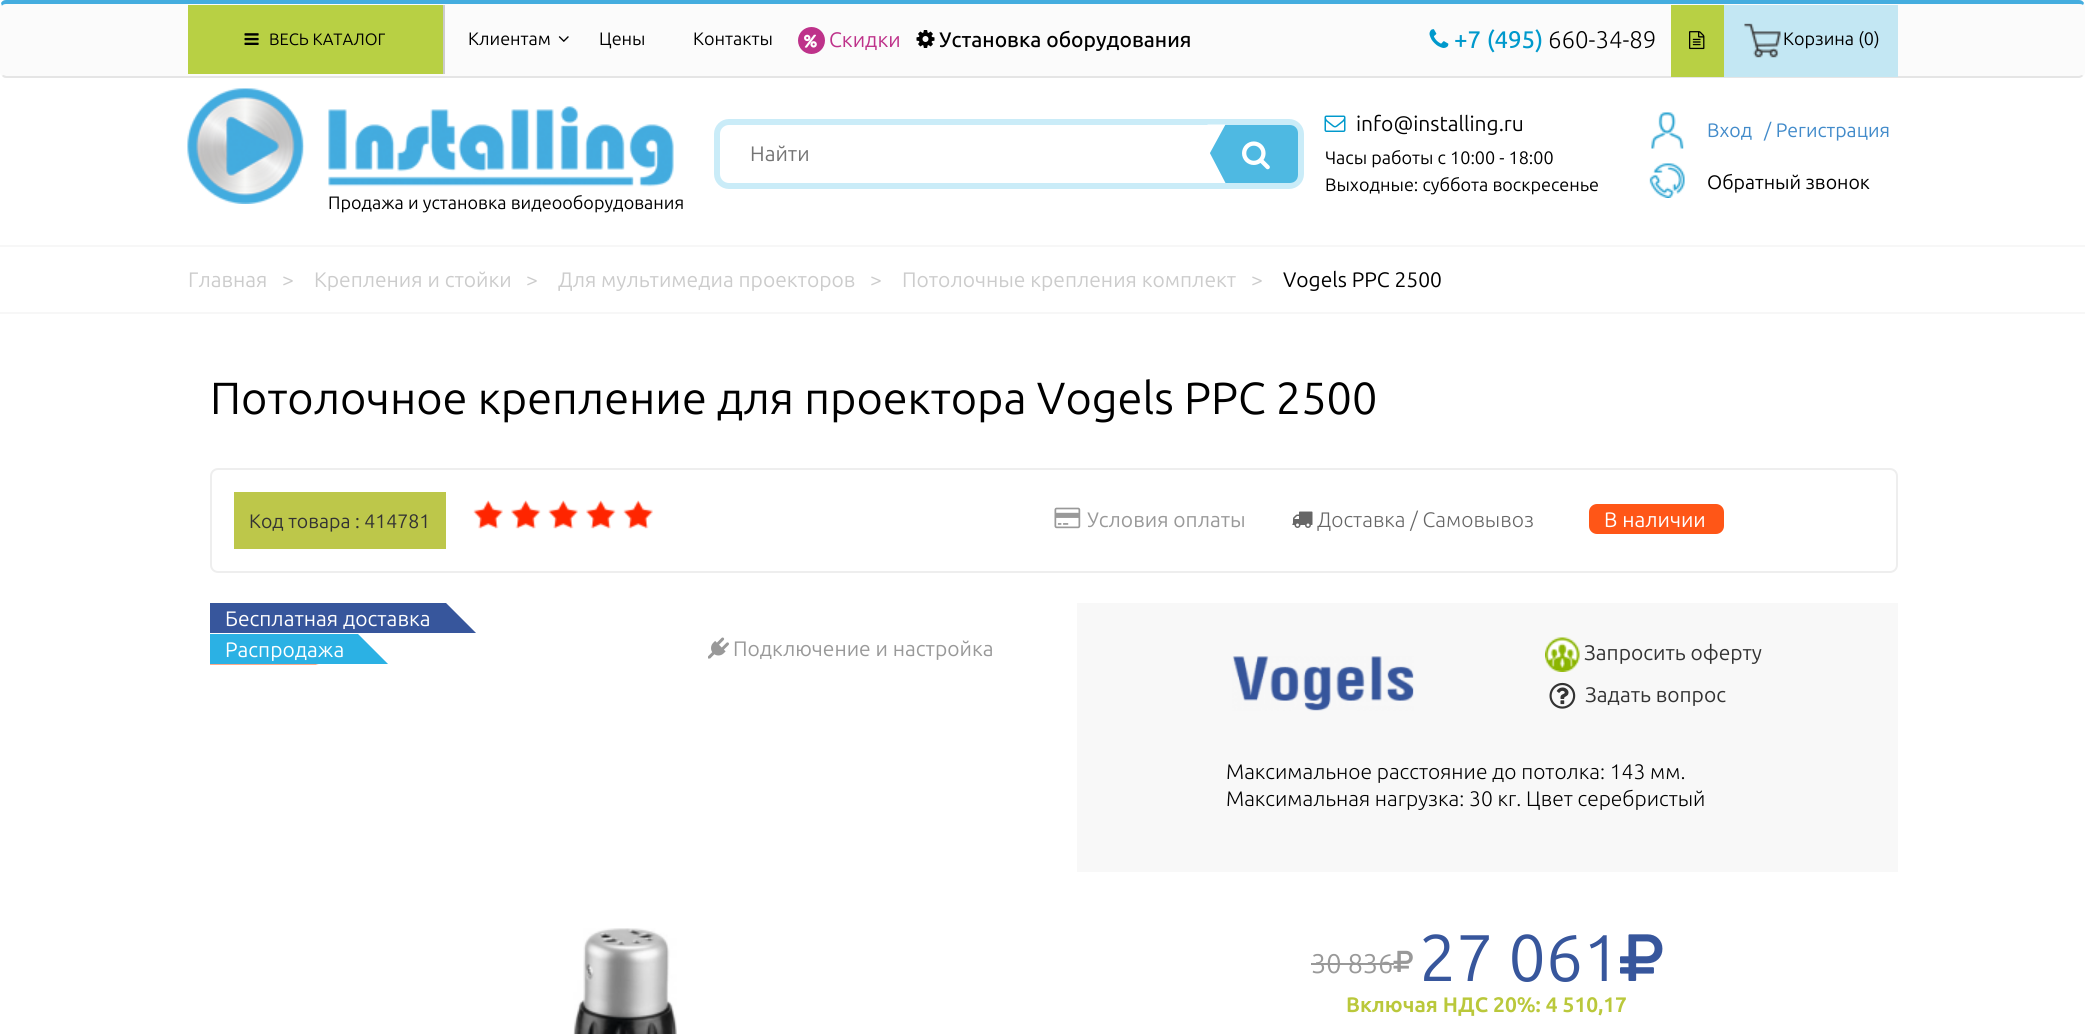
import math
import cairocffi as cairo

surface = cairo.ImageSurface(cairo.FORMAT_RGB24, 2085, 1034)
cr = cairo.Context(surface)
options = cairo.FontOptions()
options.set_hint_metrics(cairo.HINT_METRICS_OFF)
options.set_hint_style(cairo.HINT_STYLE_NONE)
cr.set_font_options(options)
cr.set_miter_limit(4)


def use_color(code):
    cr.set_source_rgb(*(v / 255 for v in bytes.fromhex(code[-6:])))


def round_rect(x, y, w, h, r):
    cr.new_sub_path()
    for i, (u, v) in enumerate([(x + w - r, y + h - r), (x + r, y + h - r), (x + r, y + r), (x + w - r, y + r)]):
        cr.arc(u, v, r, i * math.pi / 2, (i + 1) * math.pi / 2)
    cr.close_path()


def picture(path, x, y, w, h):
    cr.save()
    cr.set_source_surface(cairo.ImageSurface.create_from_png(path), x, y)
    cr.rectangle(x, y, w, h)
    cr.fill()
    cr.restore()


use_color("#ffffff")
cr.paint()
use_color("#fbfbfb")
round_rect(0, 0, 2085, 78, 6)
cr.fill()
use_color("#44addf")
cr.new_path()
cr.move_to(6, 0)
cr.curve_to(4, 0, 2, 1, 1, 3)
cr.line_to(2, 6)
cr.curve_to(2, 5, 4, 4, 6, 4)
cr.line_to(2079, 4)
cr.curve_to(2080, 4, 2082, 4, 2083, 5)
cr.line_to(2084, 3)
cr.curve_to(2083, 1, 2081, 0, 2079, 0)
cr.close_path()
cr.fill()
use_color("#e5e5e5")
cr.new_path()
cr.move_to(6, 78)
cr.line_to(2079, 78)
cr.curve_to(2080, 78, 2082, 77, 2083, 76)
cr.line_to(2082, 75)
cr.line_to(2079, 76)
cr.line_to(6, 76)
cr.line_to(3, 75)
cr.line_to(2, 76)
cr.curve_to(3, 77, 4, 78, 6, 78)
cr.close_path()
cr.fill()
use_color("#cccccc")
cr.rectangle(443, 5, 2, 69)
cr.fill()
use_color("#b8d044")
cr.rectangle(188, 5, 255, 69)
cr.fill()
picture("img1.png", 244, 33, 15, 12)
cr.select_font_face("Ubuntu")
cr.set_font_size(16.5)
use_color("#000000")
cr.move_to(269, 45)
cr.show_text("ВЕСЬ КАТАЛОГ")
cr.set_font_size(18)
cr.move_to(468, 45)
cr.show_text("Клиентам")
picture("img2.png", 558, 36, 11, 6)
cr.move_to(599, 45)
cr.show_text("Цены")
cr.move_to(693, 45)
cr.show_text("Контакты")
use_color("#be328a")
cr.new_path()
cr.arc(811.5, 40.5, 13.5, 0, 2 * math.pi)
cr.fill()
picture("img3.png", 804, 34, 13, 14)
cr.set_font_size(21)
cr.move_to(829, 47)
cr.show_text("Скидки")
picture("img4.png", 916, 30, 19, 18)
cr.select_font_face("Ubuntu Medium")
use_color("#000000")
cr.move_to(939, 47)
cr.show_text("Установка оборудования")
picture("img5.png", 1429, 29, 20, 19)
cr.set_font_size(24)
use_color("#0099cc")
cr.move_to(1454, 48)
cr.show_text("+7 (495)")
cr.select_font_face("Ubuntu Light")
use_color("#000000")
cr.move_to(1548, 48)
cr.show_text("660-34-89")
use_color("#b8d044")
cr.rectangle(1671, 5, 53, 72)
cr.fill()
picture("img6.png", 1689, 31, 16, 19)
use_color("#c3e7f3")
cr.rectangle(1724, 5, 174, 72)
cr.fill()
picture("img7.png", 1744, 23, 37, 35)
cr.select_font_face("Ubuntu")
cr.set_font_size(18)
use_color("#000000")
cr.move_to(1783, 45)
cr.show_text("Корзина (0)")
round_rect(717, 122, 584, 64, 12)
use_color("#caecf8")
cr.set_line_width(6)
cr.stroke()
cr.set_font_size(21)
use_color("#757575")
cr.move_to(750, 161)
cr.show_text("Найти")
use_color("#4eb9e2")
cr.new_path()
cr.move_to(1208, 125)
cr.line_to(1290, 125)
cr.curve_to(1294.5, 125, 1298, 128.5, 1298, 133)
cr.line_to(1298, 175)
cr.curve_to(1298, 179.5, 1294.5, 183, 1290, 183)
cr.line_to(1208, 183)
cr.close_path()
cr.fill()
use_color("#ffffff")
cr.new_path()
cr.move_to(1207.5, 124.5)
cr.line_to(1225.5, 124.5)
cr.line_to(1207.5, 157.5)
cr.close_path()
cr.fill()
picture("img8.png", 1242, 141, 28, 29)
cr.new_path()
cr.move_to(1225.5, 183)
cr.line_to(1207.5, 183)
cr.line_to(1207.5, 148.5)
cr.close_path()
cr.fill()
picture("img9.png", 1324, 115, 22, 17)
use_color("#000000")
cr.move_to(1356, 131)
cr.show_text("info@installing.ru")
cr.set_font_size(18)
cr.move_to(1325, 164)
cr.show_text("Часы работы с 10:00 - 18:00")
cr.move_to(1325, 191)
cr.show_text("Выходные: суббота воскресенье")
picture("img10.png", 1651, 112, 33, 37)
cr.set_font_size(19.5)
use_color("#428bca")
cr.move_to(1707, 137)
cr.show_text("Вход")
cr.move_to(1764, 137)
cr.show_text("/ Регистрация")
picture("img11.png", 1649, 163, 36, 35)
use_color("#000000")
cr.move_to(1707, 189)
cr.show_text("Обратный звонок")
picture("img12.png", 187, 88, 487, 116)
cr.set_font_size(18)
cr.move_to(328, 209)
cr.show_text("Продажа и установка видеооборудования")
use_color("#f7f7f7")
cr.rectangle(0, 245, 2085, 2)
cr.fill()
cr.rectangle(0, 312, 2085, 2)
cr.fill()
cr.set_font_size(21)
use_color("#cccccc")
cr.move_to(188, 287)
cr.show_text("Главная")
cr.move_to(282, 287)
cr.show_text(">")
cr.move_to(314, 287)
cr.show_text("Крепления и стойки")
cr.move_to(526, 287)
cr.show_text(">")
cr.move_to(558, 287)
cr.show_text("Для мультимедиа проекторов")
cr.move_to(870, 287)
cr.show_text(">")
cr.move_to(902, 287)
cr.show_text("Потолочные крепления комплект")
cr.move_to(1251, 287)
cr.show_text(">")
use_color("#000000")
cr.move_to(1283, 287)
cr.show_text("Vogels PPC 2500")
cr.set_font_size(45)
cr.move_to(210, 414)
cr.show_text("Потолочное крепление для проектора Vogels PPC 2500")
round_rect(211, 469, 1686, 103, 7)
use_color("#eeeeee")
cr.set_line_width(2)
cr.stroke()
use_color("#bdc74a")
cr.rectangle(234, 492, 212, 57)
cr.fill()
cr.set_font_size(19.5)
use_color("#333333")
cr.move_to(249, 528)
cr.show_text("Код товара : 414781")
picture("img13.png", 473, 500, 180, 29)
picture("img14.png", 479, 505, 168, 19)
picture("img15.png", 1054, 507, 27, 22)
cr.set_font_size(21)
use_color("#999999")
cr.move_to(1087, 527)
cr.show_text("Условия оплаты")
picture("img16.png", 1292, 511, 21, 17)
cr.select_font_face("Ubuntu Light")
use_color("#666666")
cr.move_to(1317, 527)
cr.show_text("Доставка / Самовывоз")
use_color("#ff5617")
round_rect(1589, 504, 135, 30, 8)
cr.fill()
cr.select_font_face("Ubuntu")
use_color("#ffffff")
cr.move_to(1604, 527)
cr.show_text("В наличии")
use_color("#37569c")
cr.new_path()
cr.move_to(476, 633)
cr.line_to(210, 633)
cr.line_to(210, 603)
cr.line_to(446, 603)
cr.close_path()
cr.fill()
use_color("#ffffff")
cr.move_to(225, 626)
cr.show_text("Бесплатная доставка")
picture("img17.png", 210, 664, 109, 1)
use_color("#2bb1e4")
cr.new_path()
cr.move_to(388, 664)
cr.line_to(210, 664)
cr.line_to(210, 634)
cr.line_to(358, 634)
cr.close_path()
cr.fill()
use_color("#ffffff")
cr.move_to(225, 657)
cr.show_text("Распродажа")
picture("img18.png", 708, 637, 21, 22)
use_color("#999999")
cr.move_to(733, 656)
cr.show_text("Подключение и настройка")
picture("img19.png", 573, 928, 104, 106)
use_color("#f8f8f8")
cr.rectangle(1077, 603, 821, 269)
cr.fill()
picture("img20.png", 1232, 656, 182, 55)
picture("img21.png", 1545, 637, 35, 35)
use_color("#333333")
cr.move_to(1584, 660)
cr.show_text("Запросить оферту")
picture("img22.png", 1549, 682, 27, 27)
cr.move_to(1585, 702)
cr.show_text("Задать вопрос")
cr.select_font_face("Ubuntu Light")
use_color("#000000")
cr.move_to(1226, 779)
cr.show_text("Максимальное расстояние до потолка: 143 мм.")
cr.move_to(1226, 806)
cr.show_text("Максимальная нагрузка: 30 кг. Цвет серебристый")
cr.select_font_face("Ubuntu")
cr.set_font_size(27)
use_color("#999999")
cr.move_to(1311, 973)
cr.show_text("30 836")
cr.rectangle(1311, 963, 83, 2)
cr.fill()
picture("img23.png", 1393, 950, 20, 22)
cr.set_font_size(66)
use_color("#37569c")
cr.move_to(1419, 981)
cr.show_text("27 061")
picture("img24.png", 1620, 934, 43, 47)
cr.select_font_face("Ubuntu", cairo.FONT_SLANT_NORMAL, cairo.FONT_WEIGHT_BOLD)
cr.set_font_size(21)
use_color("#bac83b")
cr.move_to(1346, 1012)
cr.show_text("Включая НДС 20%: 4 510,17")
surface.write_to_png("result.png")
